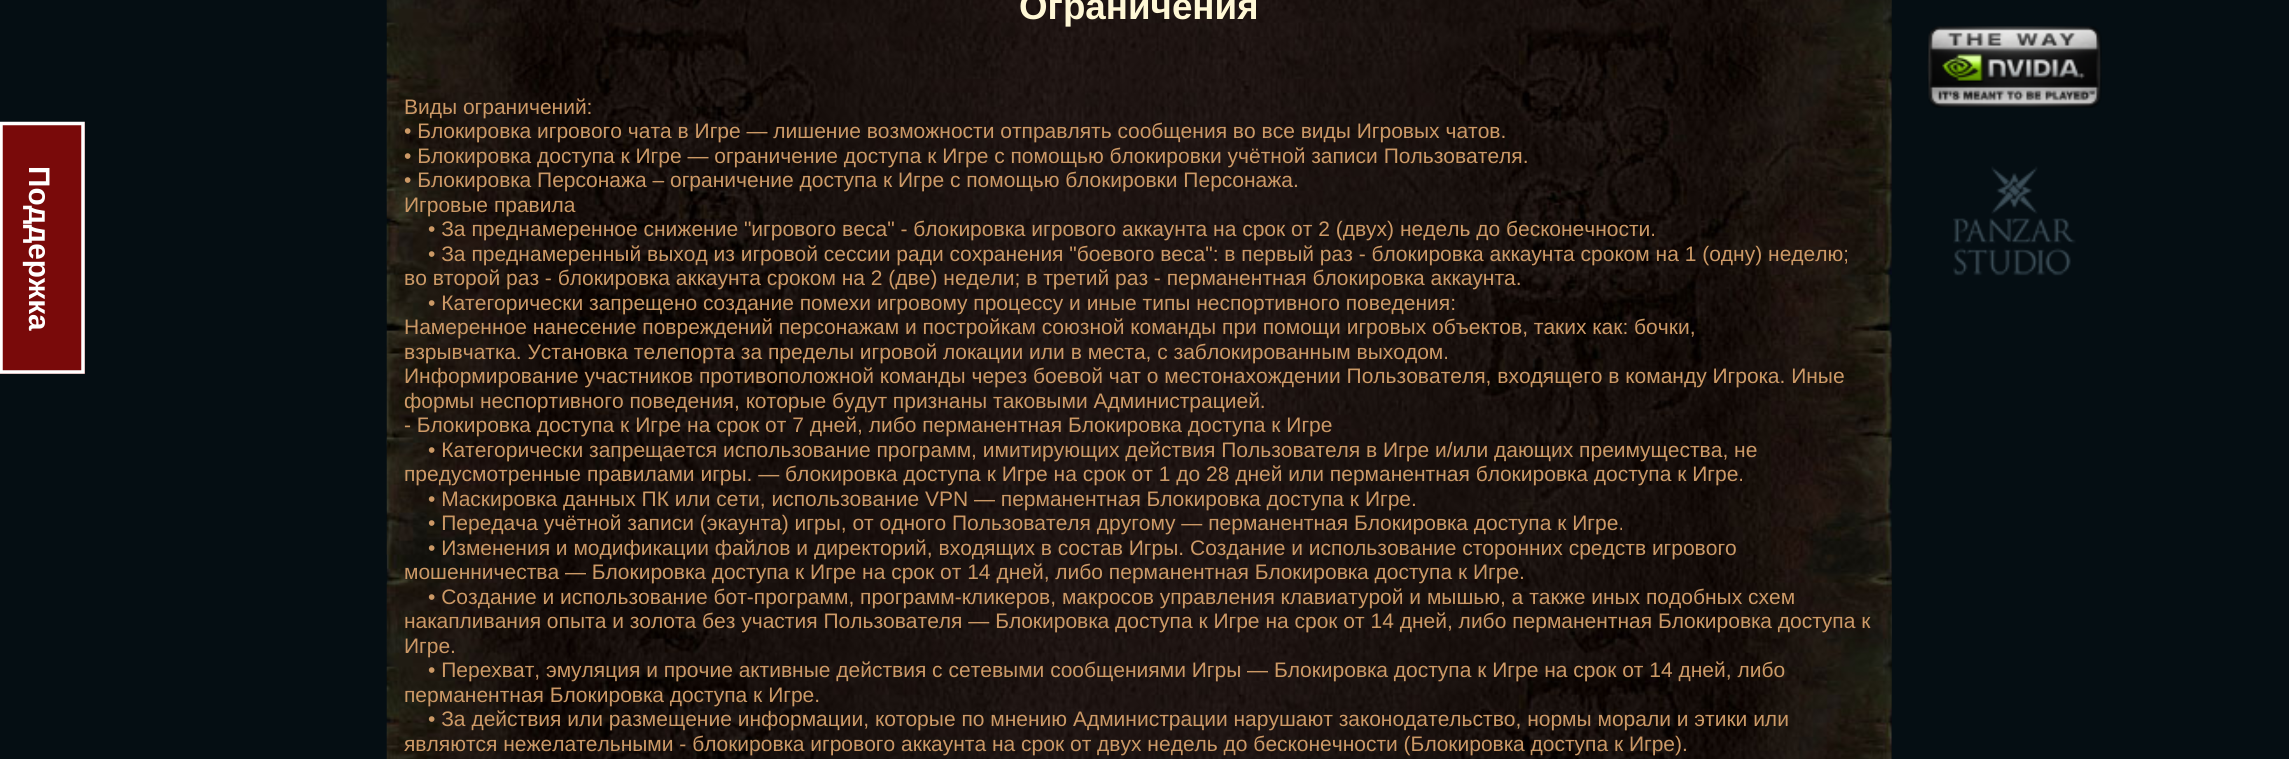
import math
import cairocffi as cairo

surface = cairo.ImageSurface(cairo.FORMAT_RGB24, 2289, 759)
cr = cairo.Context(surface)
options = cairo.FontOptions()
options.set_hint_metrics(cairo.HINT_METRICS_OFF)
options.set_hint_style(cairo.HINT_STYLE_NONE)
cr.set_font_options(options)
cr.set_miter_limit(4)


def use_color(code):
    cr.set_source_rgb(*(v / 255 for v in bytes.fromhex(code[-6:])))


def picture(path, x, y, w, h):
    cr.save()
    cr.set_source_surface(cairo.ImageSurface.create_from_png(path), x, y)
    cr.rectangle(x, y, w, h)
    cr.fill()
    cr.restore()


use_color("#050e13")
cr.paint()
use_color("#790a0a")
cr.rectangle(0, 122, 85, 252)
cr.fill()
cr.new_path()
cr.move_to(83, 123.5)
cr.line_to(83, 372)
cr.line_to(1, 372)
cr.line_to(1, 123.5)
cr.close_path()
use_color("#ffffff")
cr.set_line_width(3.5)
cr.stroke()
cr.select_font_face("Liberation Sans", cairo.FONT_SLANT_NORMAL, cairo.FONT_WEIGHT_BOLD)
cr.set_font_size(29.75)
cr.save()
cr.translate(29, 166)
cr.rotate(90 * math.pi / 180)
cr.move_to(0, 0)
cr.show_text("Поддержка")
cr.restore()
picture("img1.png", 386, 0, 1506, 759)
cr.set_font_size(36.75)
use_color("#fff8d6")
cr.move_to(1019, 19)
cr.show_text("Ограничения")
cr.select_font_face("Liberation Sans")
cr.set_font_size(21)
use_color("#cc9966")
cr.move_to(404, 114)
cr.show_text("Виды ограничений:")
cr.move_to(404, 138)
cr.show_text("• Блокировка игрового чата в Игре — лишение возможности отправлять сообщения во все виды Игровых чатов.")
cr.move_to(404, 163)
cr.show_text("• Блокировка доступа к Игре — ограничение доступа к Игре с помощью блокировки учётной записи Пользователя.")
cr.move_to(404, 187)
cr.show_text("• Блокировка Персонажа – ограничение доступа к Игре с помощью блокировки Персонажа.")
cr.move_to(404, 212)
cr.show_text("Игровые правила")
cr.move_to(428, 236)
cr.show_text("• За преднамеренное снижение \"игрового веса\" - блокировка игрового аккаунта на срок от 2 (двух) недель до бесконечности.")
cr.move_to(428, 261)
cr.show_text("• За преднамеренный выход из игровой сессии ради сохранения \"боевого веса\": в первый раз - блокировка аккаунта сроком на 1 (одну) неделю;")
cr.move_to(404, 285)
cr.show_text("во второй раз - блокировка аккаунта сроком на 2 (две) недели; в третий раз - перманентная блокировка аккаунта.")
cr.move_to(428, 310)
cr.show_text("• Категорически запрещено создание помехи игровому процессу и иные типы неспортивного поведения:")
cr.move_to(404, 334)
cr.show_text("Намеренное нанесение повреждений персонажам и постройкам союзной команды при помощи игровых объектов, таких как: бочки,")
cr.move_to(404, 359)
cr.show_text("взрывчатка. Установка телепорта за пределы игровой локации или в места, с заблокированным выходом.")
cr.move_to(404, 383)
cr.show_text("Информирование участников противоположной команды через боевой чат о местонахождении Пользователя, входящего в команду Игрока. Иные")
cr.move_to(404, 408)
cr.show_text("формы неспортивного поведения, которые будут признаны таковыми Администрацией.")
cr.move_to(404, 432)
cr.show_text("- Блокировка доступа к Игре на срок от 7 дней, либо перманентная Блокировка доступа к Игре")
cr.move_to(428, 457)
cr.show_text("• Категорически запрещается использование программ, имитирующих действия Пользователя в Игре и/или дающих преимущества, не")
cr.move_to(404, 481)
cr.show_text("предусмотренные правилами игры. — блокировка доступа к Игре на срок от 1 до 28 дней или перманентная блокировка доступа к Игре.")
cr.move_to(428, 506)
cr.show_text("• Маскировка данных ПК или сети, использование VPN — перманентная Блокировка доступа к Игре.")
cr.move_to(428, 530)
cr.show_text("• Передача учётной записи (экаунта) игры, от одного Пользователя другому — перманентная Блокировка доступа к Игре.")
cr.move_to(428, 555)
cr.show_text("• Изменения и модификации файлов и директорий, входящих в состав Игры. Создание и использование сторонних средств игрового")
cr.move_to(404, 579)
cr.show_text("мошенничества — Блокировка доступа к Игре на срок от 14 дней, либо перманентная Блокировка доступа к Игре.")
cr.move_to(428, 604)
cr.show_text("• Создание и использование бот-программ, программ-кликеров, макросов управления клавиатурой и мышью, а также иных подобных схем")
cr.move_to(404, 628)
cr.show_text("накапливания опыта и золота без участия Пользователя — Блокировка доступа к Игре на срок от 14 дней, либо перманентная Блокировка доступа к")
cr.move_to(404, 653)
cr.show_text("Игре.")
cr.move_to(428, 677)
cr.show_text("• Перехват, эмуляция и прочие активные действия с сетевыми сообщениями Игры — Блокировка доступа к Игре на срок от 14 дней, либо")
cr.move_to(404, 702)
cr.show_text("перманентная Блокировка доступа к Игре.")
cr.move_to(428, 726)
cr.show_text("• За действия или размещение информации, которые по мнению Администрации нарушают законодательство, нормы морали и этики или")
cr.move_to(404, 751)
cr.show_text("являются нежелательными - блокировка игрового аккаунта на срок от двух недель до бесконечности (Блокировка доступа к Игре).")
picture("img2.png", 1927, 26, 175, 82)
picture("img3.png", 1953, 166, 123, 110)
surface.write_to_png("result.png")
